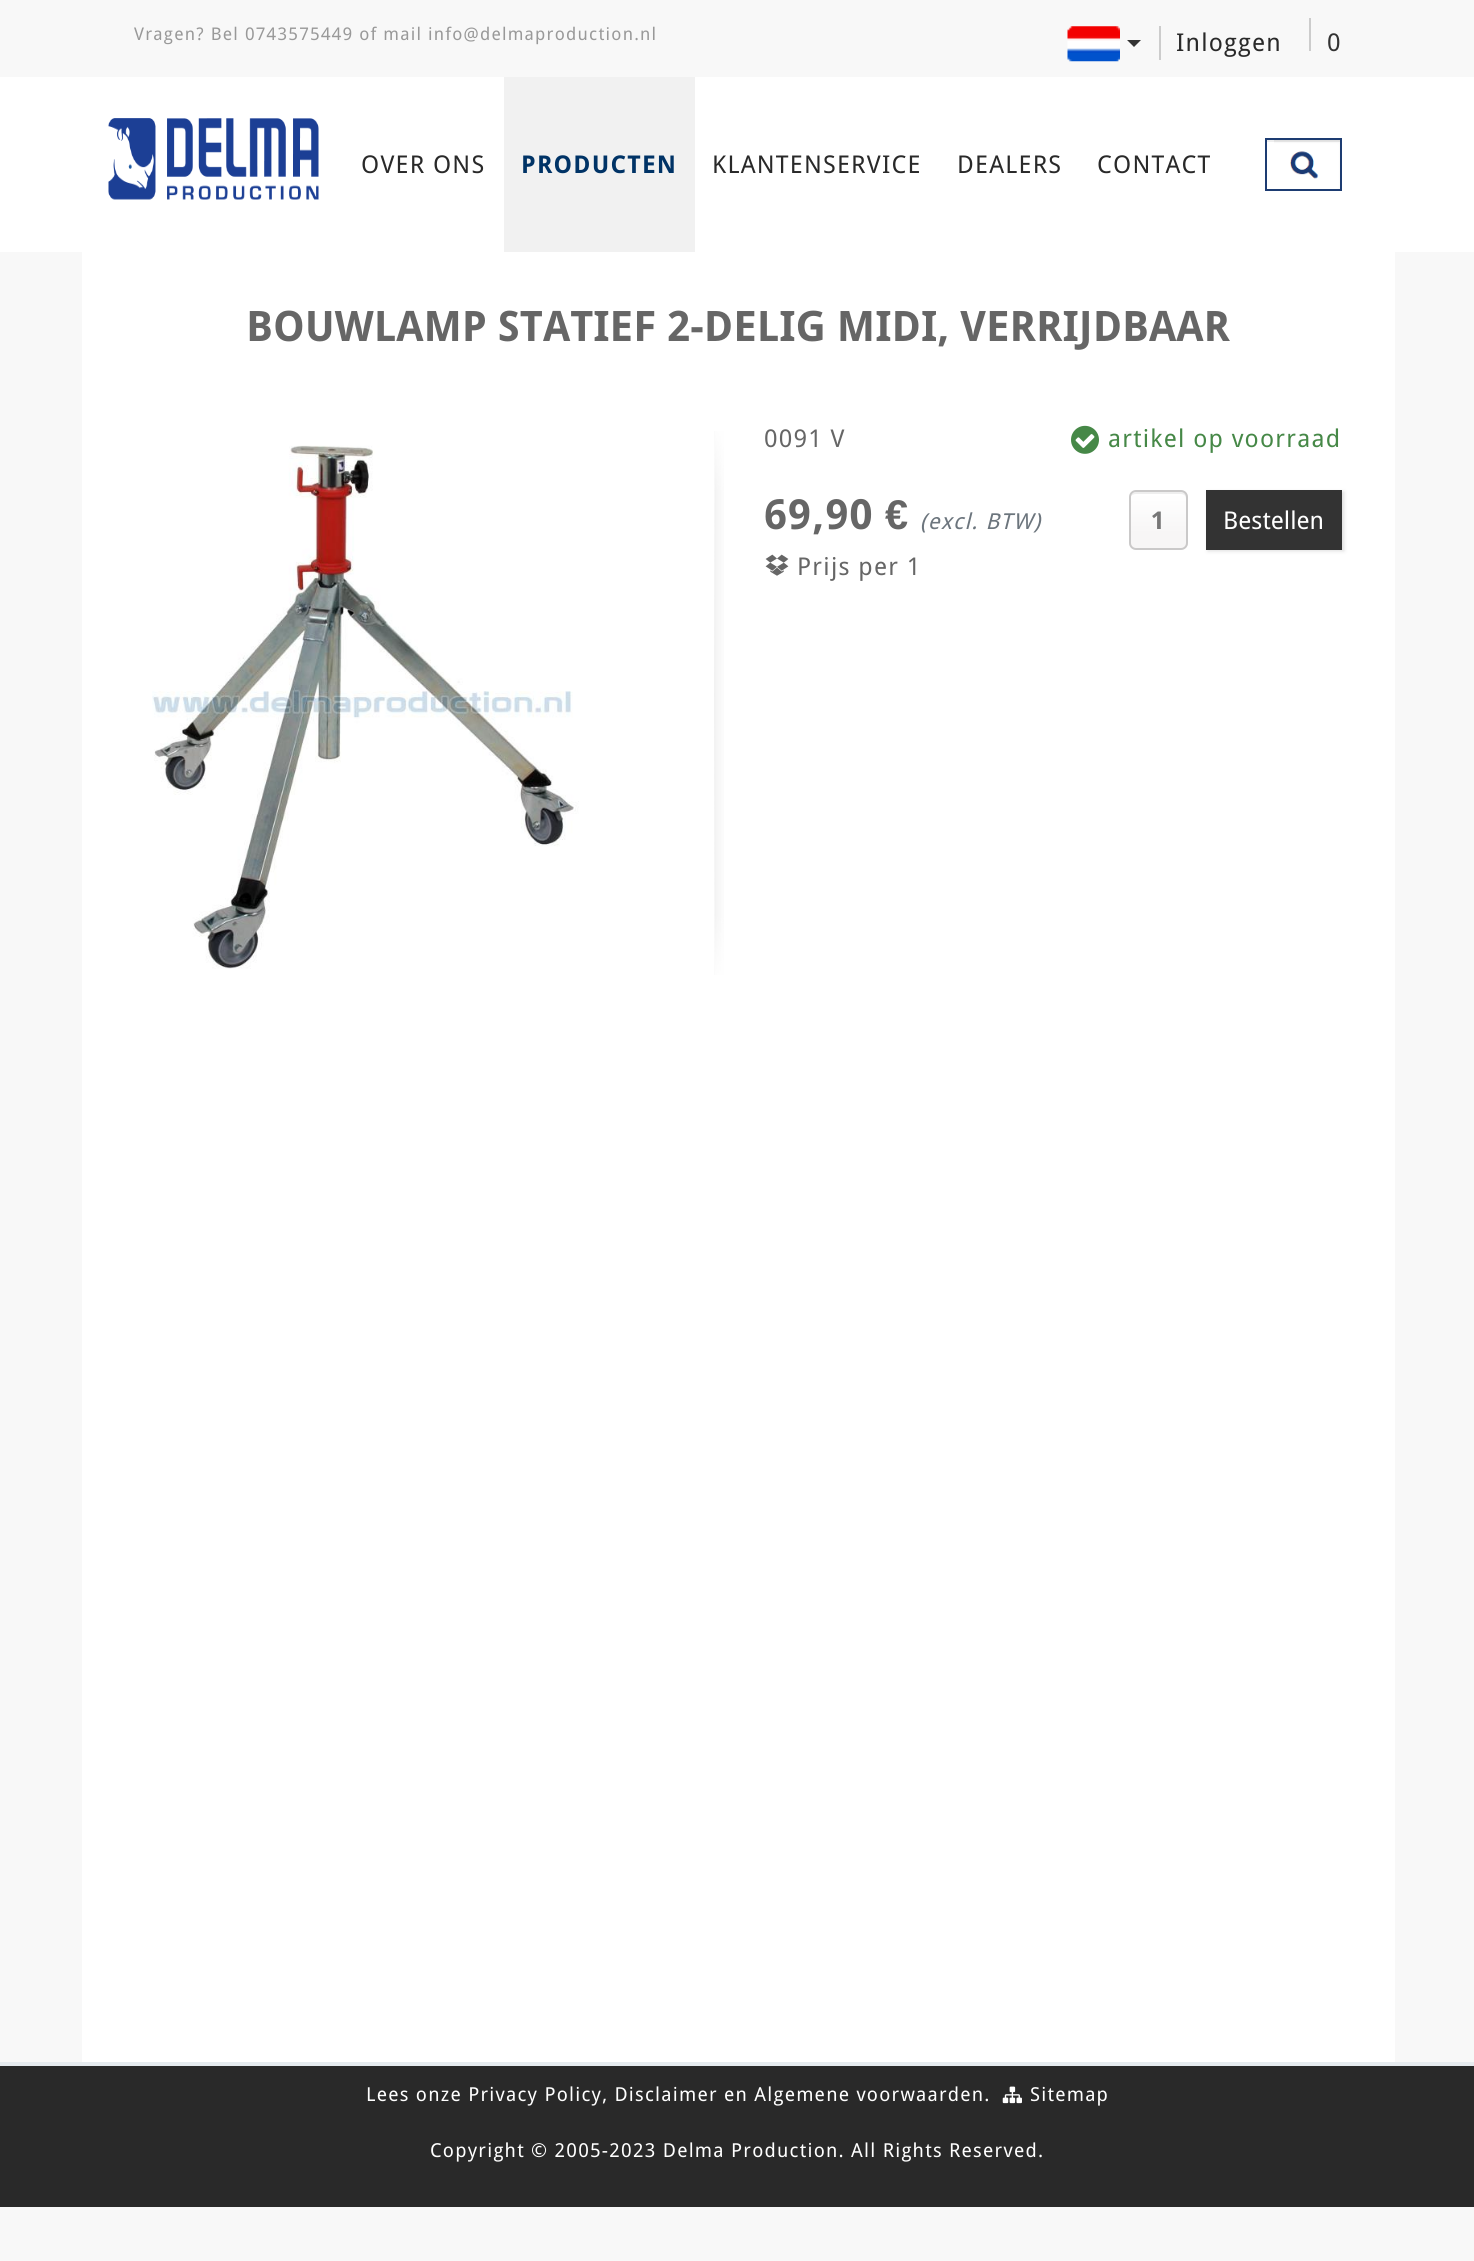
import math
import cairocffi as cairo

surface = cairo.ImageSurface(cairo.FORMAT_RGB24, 1474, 2261)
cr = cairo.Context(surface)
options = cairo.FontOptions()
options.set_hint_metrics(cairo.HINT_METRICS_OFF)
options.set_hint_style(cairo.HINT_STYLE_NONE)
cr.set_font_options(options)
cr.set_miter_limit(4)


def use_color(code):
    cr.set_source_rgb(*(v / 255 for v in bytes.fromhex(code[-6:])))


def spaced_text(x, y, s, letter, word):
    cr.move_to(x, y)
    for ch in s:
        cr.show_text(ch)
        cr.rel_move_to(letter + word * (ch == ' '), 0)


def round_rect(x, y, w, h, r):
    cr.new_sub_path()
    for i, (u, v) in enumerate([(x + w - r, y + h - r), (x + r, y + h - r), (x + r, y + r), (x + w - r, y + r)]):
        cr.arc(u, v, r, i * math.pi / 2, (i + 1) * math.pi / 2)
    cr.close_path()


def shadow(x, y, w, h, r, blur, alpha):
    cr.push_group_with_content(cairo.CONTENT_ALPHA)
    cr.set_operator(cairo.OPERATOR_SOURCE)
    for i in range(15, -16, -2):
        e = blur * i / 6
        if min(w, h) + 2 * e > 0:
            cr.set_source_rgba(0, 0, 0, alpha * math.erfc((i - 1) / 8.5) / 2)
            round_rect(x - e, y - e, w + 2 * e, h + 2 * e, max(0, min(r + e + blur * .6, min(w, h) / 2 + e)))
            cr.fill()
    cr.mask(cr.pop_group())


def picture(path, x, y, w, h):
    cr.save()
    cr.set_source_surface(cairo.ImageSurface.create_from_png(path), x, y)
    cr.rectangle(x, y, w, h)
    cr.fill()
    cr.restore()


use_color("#f8f8f8")
cr.paint()
cr.select_font_face("Droid Sans")
cr.set_font_size(17.5)
use_color("#999999")
spaced_text(134, 40, "Vragen? Bel 0743575449 of mail info@delmaproduction.nl", 1.22, 0)
use_color("#cccccc")
cr.rectangle(1159, 26, 2, 34)
cr.fill()
picture("img1.png", 1067, 26, 53, 36)
use_color("#333333")
cr.new_path()
cr.move_to(1127, 40)
cr.line_to(1141, 40)
cr.line_to(1134, 47)
cr.close_path()
cr.fill()
use_color("#cccccc")
cr.rectangle(1309, 18, 2, 33)
cr.fill()
cr.set_font_size(24.5)
use_color("#292929")
spaced_text(1176, 51, "Inloggen", 1.22, 0)
use_color("#333333")
spaced_text(1327, 51, "0", 1.22, 0)
use_color("#ffffff")
cr.rectangle(0, 77, 1474, 175)
cr.fill()
picture("img2.png", 108, 118, 211, 82)
use_color("#292929")
spaced_text(361, 173, "OVER ONS", 1.22, 0)
use_color("#f1f1f1")
cr.rectangle(504, 77, 191, 175)
cr.fill()
cr.select_font_face("Droid Sans", cairo.FONT_SLANT_NORMAL, cairo.FONT_WEIGHT_BOLD)
use_color("#003366")
spaced_text(521, 173, "PRODUCTEN", 1.22, 0)
cr.select_font_face("Droid Sans")
use_color("#292929")
spaced_text(712, 173, "KLANTENSERVICE", 1.22, 0)
spaced_text(957, 173, "DEALERS", 1.22, 0)
spaced_text(1097, 173, "CONTACT", 1.22, 0)
picture("img3.png", 1274, 140, 66, 49)
cr.set_source_rgba(0, 0, 0, 0.07)
cr.rectangle(1267, 140, 74, 2)
cr.fill()
cr.rectangle(1266, 139, 75, 51)
use_color("#1d3c72")
cr.stroke()
use_color("#ffffff")
cr.rectangle(82, 252, 1313, 1810)
cr.fill()
cr.select_font_face("Droid Sans", cairo.FONT_SLANT_NORMAL, cairo.FONT_WEIGHT_BOLD)
cr.set_font_size(42)
use_color("#666666")
cr.move_to(246, 341)
cr.show_text("BOUWLAMP STATIEF 2-DELIG MIDI, VERRIJDBAAR")
picture("img4.png", 714, 431, 10, 544)
picture("img5.png", 152, 445, 427, 524)
cr.select_font_face("Droid Sans")
cr.set_font_size(24.5)
spaced_text(764, 447, "0091 V", 1.22, 0)
picture("img6.png", 1071, 425, 28, 29)
use_color("#468847")
spaced_text(1108, 447, "artikel op voorraad", 1.22, 0)
cr.select_font_face("Droid Sans", cairo.FONT_SLANT_NORMAL, cairo.FONT_WEIGHT_BOLD)
cr.set_font_size(41.5)
use_color("#666666")
spaced_text(764, 529, "69,90", 1.22, 0)
cr.select_font_face("Liberation Sans", cairo.FONT_SLANT_NORMAL, cairo.FONT_WEIGHT_BOLD)
spaced_text(885, 529, "€", 1.22, 0)
cr.select_font_face("Droid Sans", cairo.FONT_SLANT_ITALIC)
cr.set_font_size(22)
use_color("#6c757d")
spaced_text(920, 529, "(excl. BTW)", 1.22, 0)
picture("img7.png", 765, 554, 24, 22)
cr.select_font_face("Droid Sans")
cr.set_font_size(24.5)
use_color("#666666")
spaced_text(797, 575, "Prijs per 1", 1.22, 0)
picture("img8.png", 1129, 491, 59, 58)
cr.set_source_rgba(0, 0, 0, 0.07)
cr.new_path()
cr.move_to(1136, 494)
cr.line_to(1181, 494)
cr.curve_to(1184, 494, 1186, 496, 1186, 499)
cr.line_to(1186, 544)
cr.line_to(1186, 547)
cr.curve_to(1186, 546, 1187, 544, 1187, 543)
cr.line_to(1187, 497)
cr.curve_to(1187, 494, 1185, 492, 1182, 492)
cr.line_to(1136, 492)
cr.curve_to(1134, 492, 1131, 494, 1131, 496)
cr.curve_to(1132, 495, 1134, 494, 1136, 494)
cr.close_path()
cr.fill()
round_rect(1130, 491, 57, 58, 6)
use_color("#cac9c9")
cr.stroke()
cr.select_font_face("Droid Sans", cairo.FONT_SLANT_NORMAL, cairo.FONT_WEIGHT_BOLD)
use_color("#777777")
cr.move_to(1151, 529)
cr.show_text("1")
use_color("#dddddd")
shadow(1208, 492, 136, 59, 0, 2, 1)
use_color("#333333")
cr.rectangle(1206, 490, 136, 60)
cr.fill()
cr.select_font_face("Droid Sans")
use_color("#ffffff")
cr.move_to(1223, 529)
cr.show_text("Bestellen")
use_color("#292929")
cr.rectangle(0, 2066, 1474, 141)
cr.fill()
use_color("#e6ebef")
cr.rectangle(0, 2062, 1474, 4)
cr.fill()
cr.set_font_size(19.25)
use_color("#ffffff")
spaced_text(366, 2101, "Lees onze Privacy Policy, Disclaimer en Algemene voorwaarden.", 1.22, 0)
picture("img9.png", 1002, 2086, 20, 18)
spaced_text(1030, 2101, "Sitemap", 1.22, 0)
spaced_text(430, 2157, "Copyright © 2005-2023 Delma Production. All Rights Reserved.", 1.22, 0)
surface.write_to_png("result.png")
